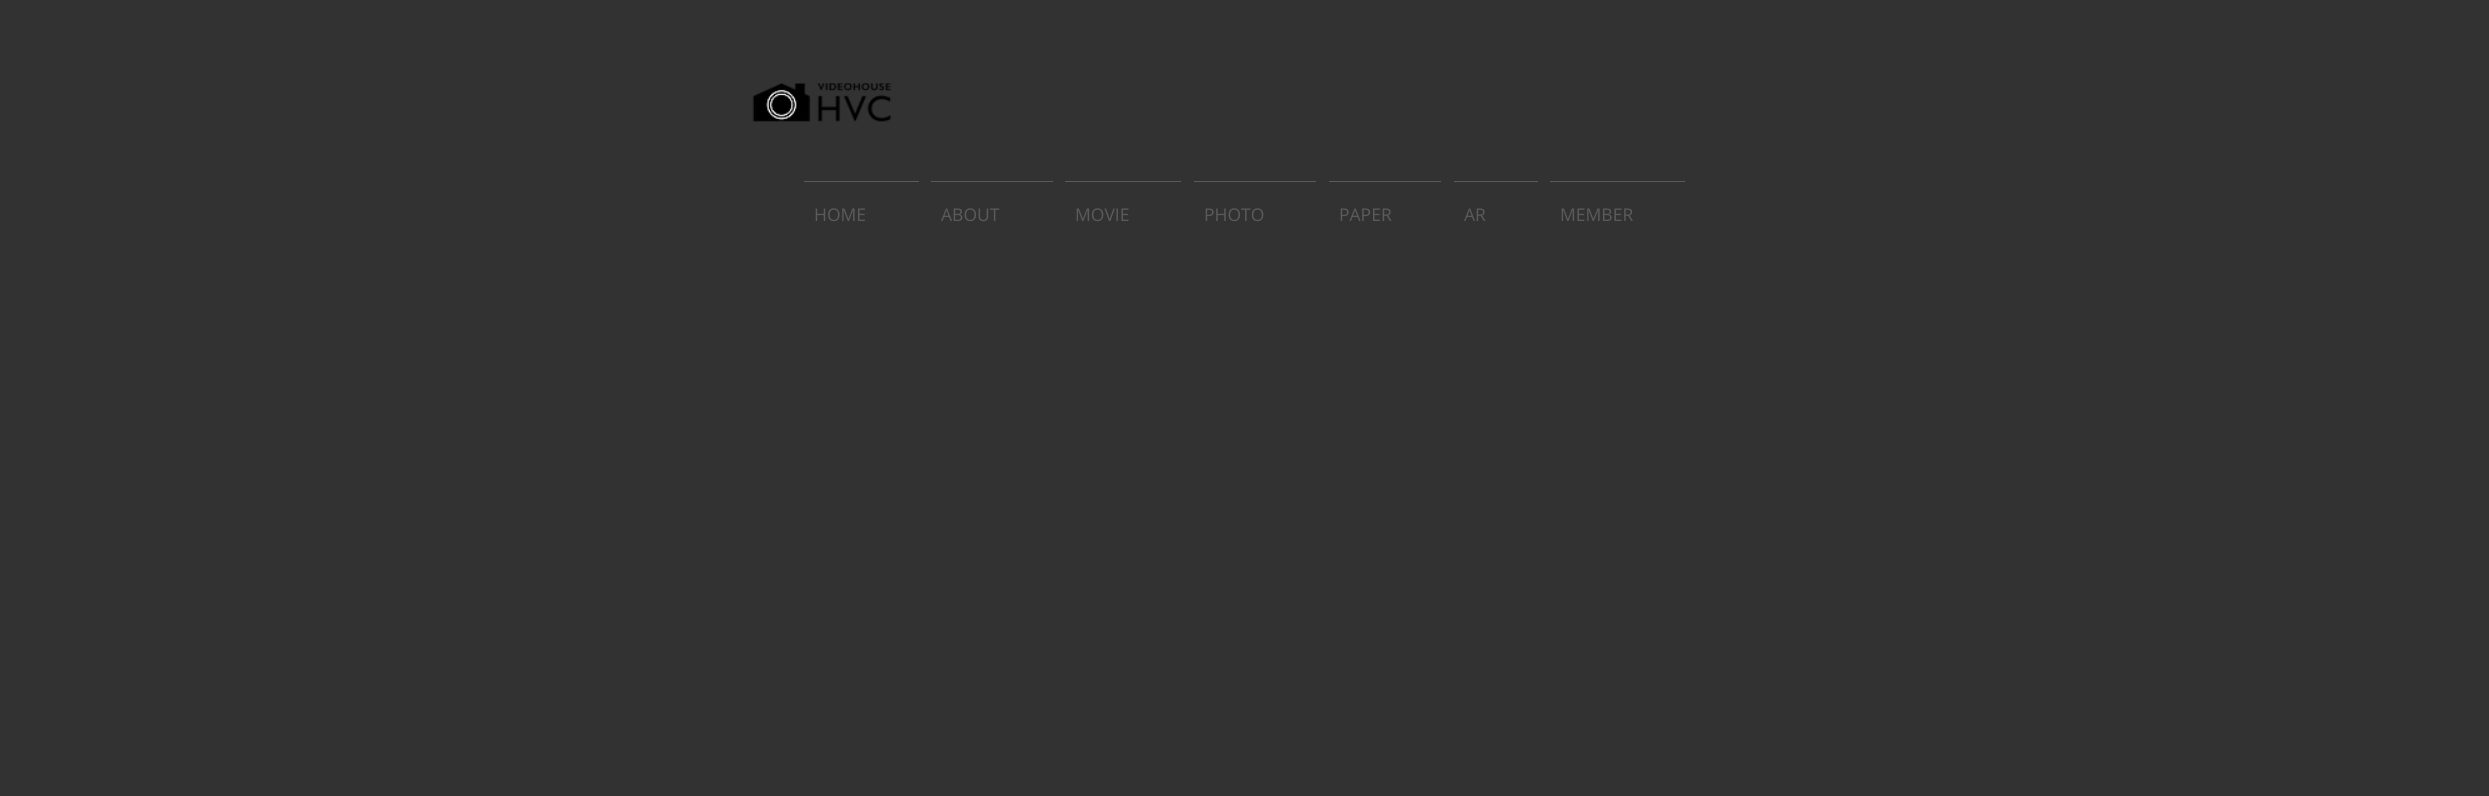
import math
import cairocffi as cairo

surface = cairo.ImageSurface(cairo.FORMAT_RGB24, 2489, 796)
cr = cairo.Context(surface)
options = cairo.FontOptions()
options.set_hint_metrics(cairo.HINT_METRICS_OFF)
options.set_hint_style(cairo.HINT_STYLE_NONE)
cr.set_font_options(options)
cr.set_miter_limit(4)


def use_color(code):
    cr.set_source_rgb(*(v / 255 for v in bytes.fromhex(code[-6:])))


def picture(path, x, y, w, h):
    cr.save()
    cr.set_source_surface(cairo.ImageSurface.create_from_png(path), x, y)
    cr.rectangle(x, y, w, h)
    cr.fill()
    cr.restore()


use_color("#323232")
cr.paint()
picture("img1.png", 752, 83, 140, 39)
use_color("#5b5b5b")
cr.rectangle(804, 181, 115, 1)
cr.fill()
cr.select_font_face("Open Sans")
cr.set_font_size(17.5)
cr.move_to(814, 221)
cr.show_text("HOME")
cr.rectangle(931, 181, 122, 1)
cr.fill()
cr.move_to(941, 221)
cr.show_text("ABOUT")
cr.rectangle(1065, 181, 116, 1)
cr.fill()
cr.move_to(1075, 221)
cr.show_text("MOVIE")
cr.rectangle(1194, 181, 122, 1)
cr.fill()
cr.move_to(1204, 221)
cr.show_text("PHOTO")
cr.rectangle(1329, 181, 112, 1)
cr.fill()
cr.move_to(1339, 221)
cr.show_text("PAPER")
cr.rectangle(1454, 181, 84, 1)
cr.fill()
cr.move_to(1464, 221)
cr.show_text("AR")
cr.rectangle(1550, 181, 135, 1)
cr.fill()
cr.move_to(1560, 221)
cr.show_text("MEMBER")
surface.write_to_png("result.png")
